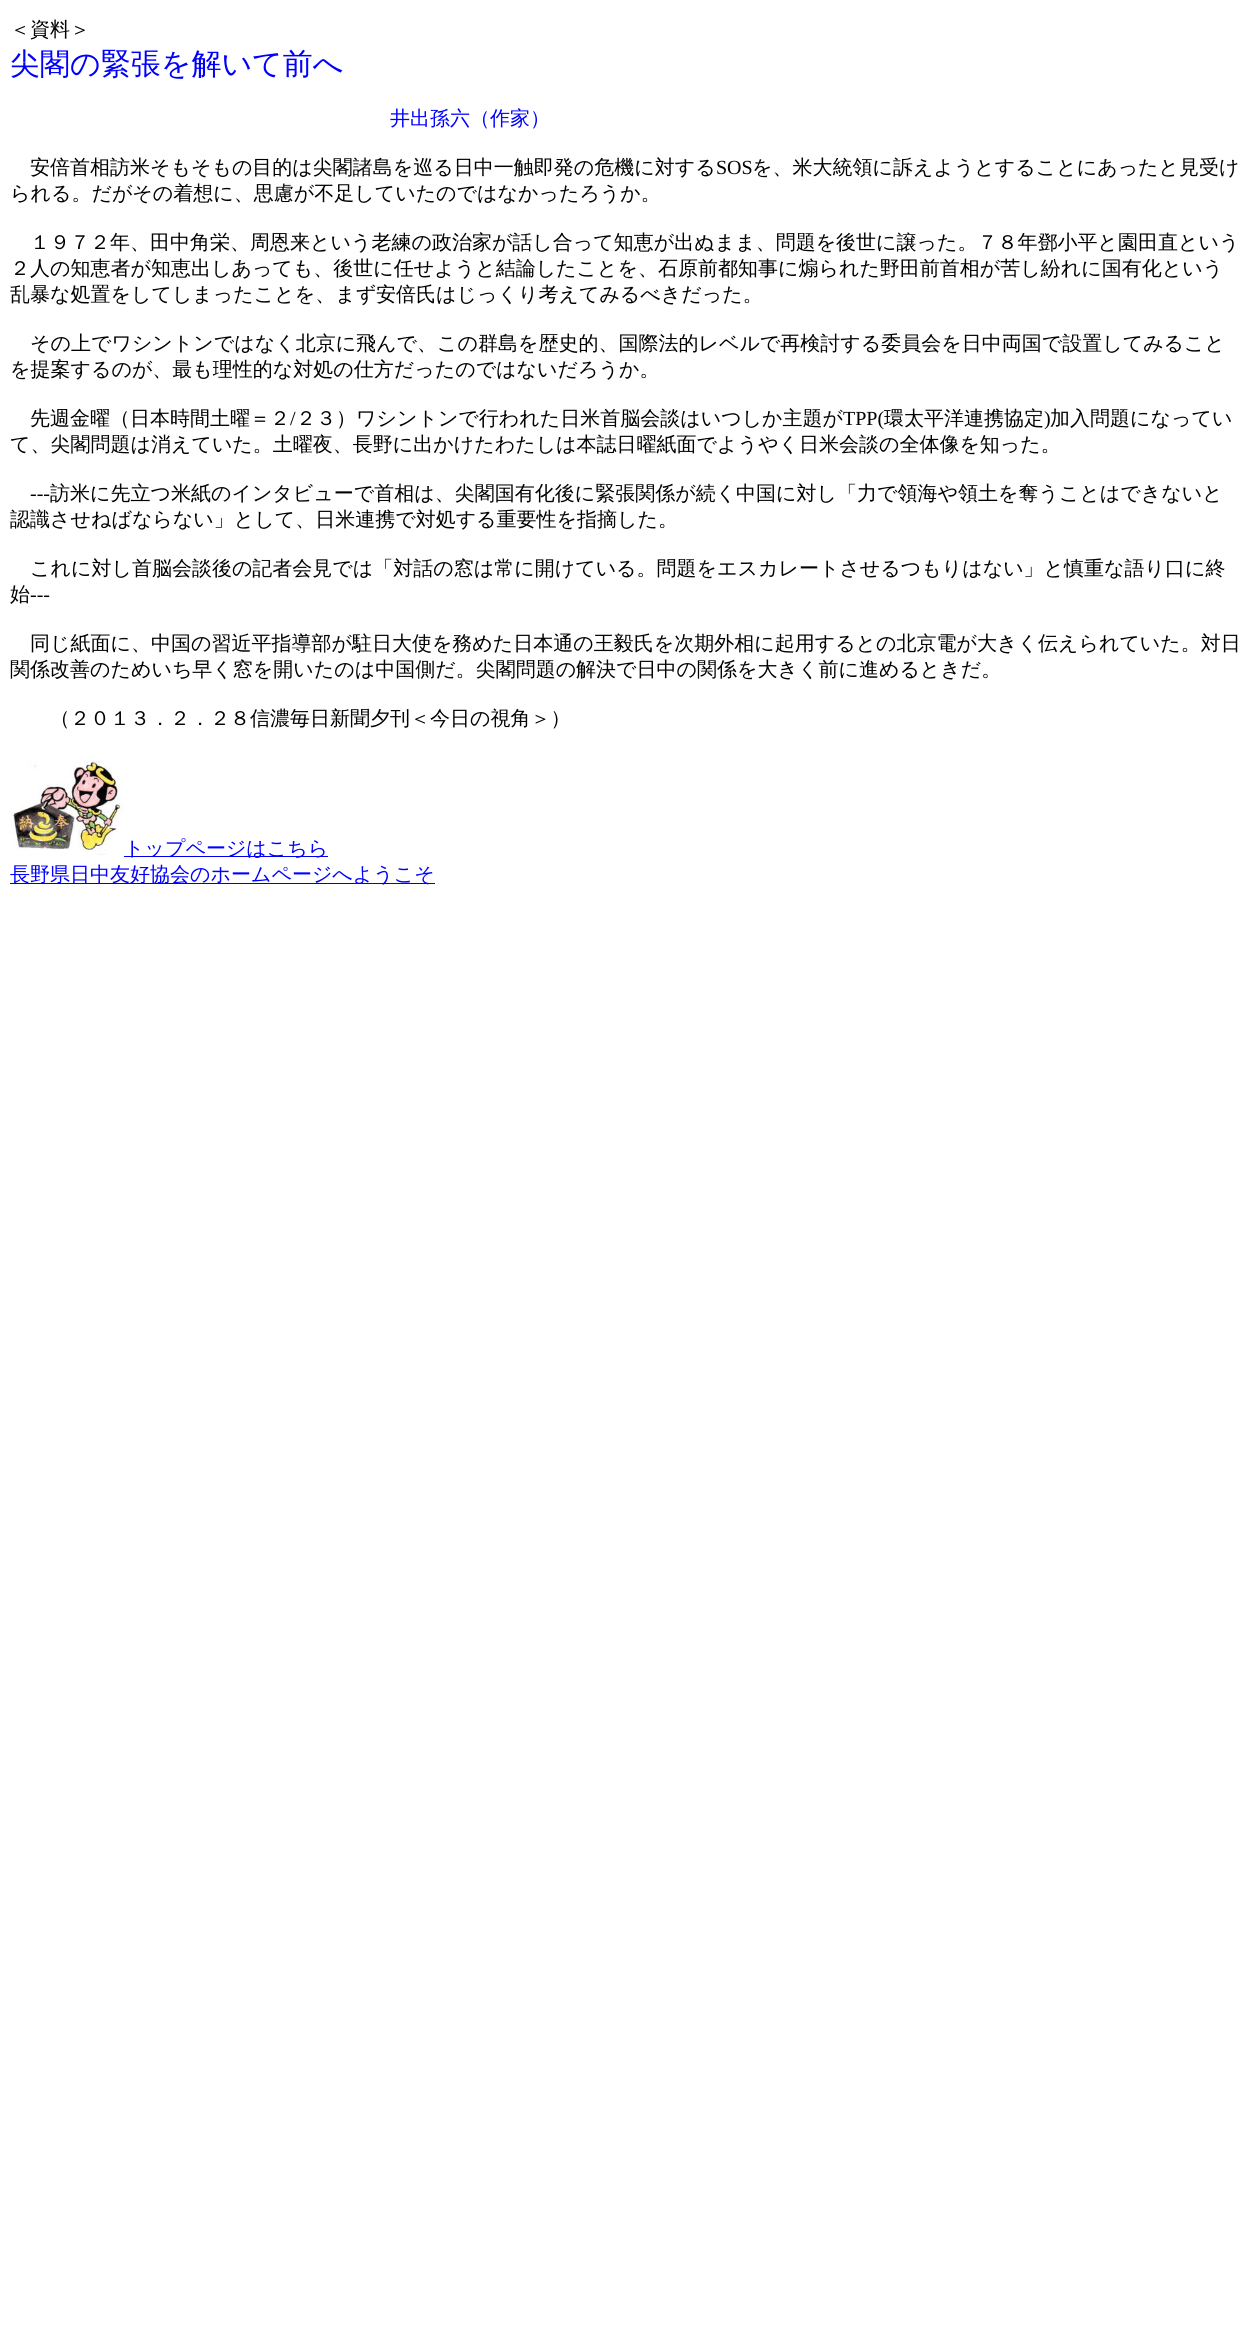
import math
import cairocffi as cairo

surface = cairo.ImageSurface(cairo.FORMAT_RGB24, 1252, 2350)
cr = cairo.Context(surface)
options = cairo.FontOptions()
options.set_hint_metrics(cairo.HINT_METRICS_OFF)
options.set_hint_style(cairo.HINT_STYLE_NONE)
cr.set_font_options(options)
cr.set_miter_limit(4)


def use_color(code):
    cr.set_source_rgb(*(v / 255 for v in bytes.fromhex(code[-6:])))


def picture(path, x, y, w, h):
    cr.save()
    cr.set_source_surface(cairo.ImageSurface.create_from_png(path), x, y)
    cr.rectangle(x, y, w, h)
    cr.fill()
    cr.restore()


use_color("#ffffff")
cr.paint()
cr.select_font_face("WenQuanYi Zen Hei Medium")
cr.set_font_size(20)
use_color("#000000")
cr.move_to(10, 36)
cr.show_text("＜資料＞")
cr.set_font_size(30)
use_color("#0000ff")
cr.move_to(10, 74)
cr.show_text("尖閣の緊張を解いて前へ")
cr.set_font_size(20)
cr.move_to(390, 125)
cr.show_text("井出孫六（作家）")
use_color("#000000")
cr.move_to(30, 174)
cr.show_text("安倍首相訪米そもそもの目的は尖閣諸島を巡る日中一触即発の危機に対する")
cr.select_font_face("Liberation Serif")
cr.move_to(716, 174)
cr.show_text("SOS")
cr.select_font_face("WenQuanYi Zen Hei Medium")
cr.move_to(752, 174)
cr.show_text("を、米大統領に訴えようとすることにあったと見受け")
cr.move_to(10, 200)
cr.show_text("られる。だがその着想に、思慮が不足していたのではなかったろうか。")
cr.move_to(30, 249)
cr.show_text("１９７２年、田中角栄、周恩来という老練の政治家が話し合って知恵が出ぬまま、問題を後世に譲った。７８年鄧小平と園田直という")
cr.move_to(10, 275)
cr.show_text("２人の知恵者が知恵出しあっても、後世に任せようと結論したことを、石原前都知事に煽られた野田前首相が苦し紛れに国有化という")
cr.move_to(10, 301)
cr.show_text("乱暴な処置をしてしまったことを、まず安倍氏はじっくり考えてみるべきだった。")
cr.move_to(30, 350)
cr.show_text("その上でワシントンではなく北京に飛んで、この群島を歴史的、国際法的レベルで再検討する委員会を日中両国で設置してみること")
cr.move_to(10, 376)
cr.show_text("を提案するのが、最も理性的な対処の仕方だったのではないだろうか。")
cr.move_to(30, 425)
cr.show_text("先週金曜（日本時間土曜＝２")
cr.select_font_face("Liberation Serif")
cr.move_to(290, 425)
cr.show_text("/")
cr.select_font_face("WenQuanYi Zen Hei Medium")
cr.move_to(296, 425)
cr.show_text("２３）ワシントンで行われた日米首脳会談はいつしか主題が")
cr.select_font_face("Liberation Serif")
cr.move_to(843, 425)
cr.show_text("TPP(")
cr.select_font_face("WenQuanYi Zen Hei Medium")
cr.move_to(884, 425)
cr.show_text("環太平洋連携協定")
cr.select_font_face("Liberation Serif")
cr.move_to(1044, 425)
cr.show_text(")")
cr.select_font_face("WenQuanYi Zen Hei Medium")
cr.move_to(1050, 425)
cr.show_text("加入問題になってい")
cr.move_to(10, 451)
cr.show_text("て、尖閣問題は消えていた。土曜夜、長野に出かけたわたしは本誌日曜紙面でようやく日米会談の全体像を知った。")
cr.select_font_face("Liberation Serif")
cr.move_to(30, 500)
cr.show_text("---")
cr.select_font_face("WenQuanYi Zen Hei Medium")
cr.move_to(50, 500)
cr.show_text("訪米に先立つ米紙のインタビューで首相は、尖閣国有化後に緊張関係が続く中国に対し「力で領海や領土を奪うことはできないと")
cr.move_to(10, 526)
cr.show_text("認識させねばならない」として、日米連携で対処する重要性を指摘した。")
cr.move_to(30, 575)
cr.show_text("これに対し首脳会談後の記者会見では「対話の窓は常に開けている。問題をエスカレートさせるつもりはない」と慎重な語り口に終")
cr.move_to(10, 601)
cr.show_text("始")
cr.select_font_face("Liberation Serif")
cr.move_to(30, 601)
cr.show_text("---")
cr.select_font_face("WenQuanYi Zen Hei Medium")
cr.move_to(30, 650)
cr.show_text("同じ紙面に、中国の習近平指導部が駐日大使を務めた日本通の王毅氏を次期外相に起用するとの北京電が大きく伝えられていた。対日")
cr.move_to(10, 676)
cr.show_text("関係改善のためいち早く窓を開いたのは中国側だ。尖閣問題の解決で日中の関係を大きく前に進めるときだ。")
cr.move_to(50, 725)
cr.show_text("（２０１３．２．２８信濃毎日新聞夕刊＜今日の視角＞）")
picture("img1.png", 10, 760, 114, 95)
use_color("#0000ee")
cr.rectangle(124, 856, 204, 1)
cr.fill()
use_color("#0000ff")
cr.move_to(124, 855)
cr.show_text("トップページはこちら")
use_color("#0000ee")
cr.rectangle(10, 883, 425, 1)
cr.fill()
use_color("#0000ff")
cr.move_to(10, 881)
cr.show_text("長野県日中友好協会のホームページへようこそ")
surface.write_to_png("result.png")
